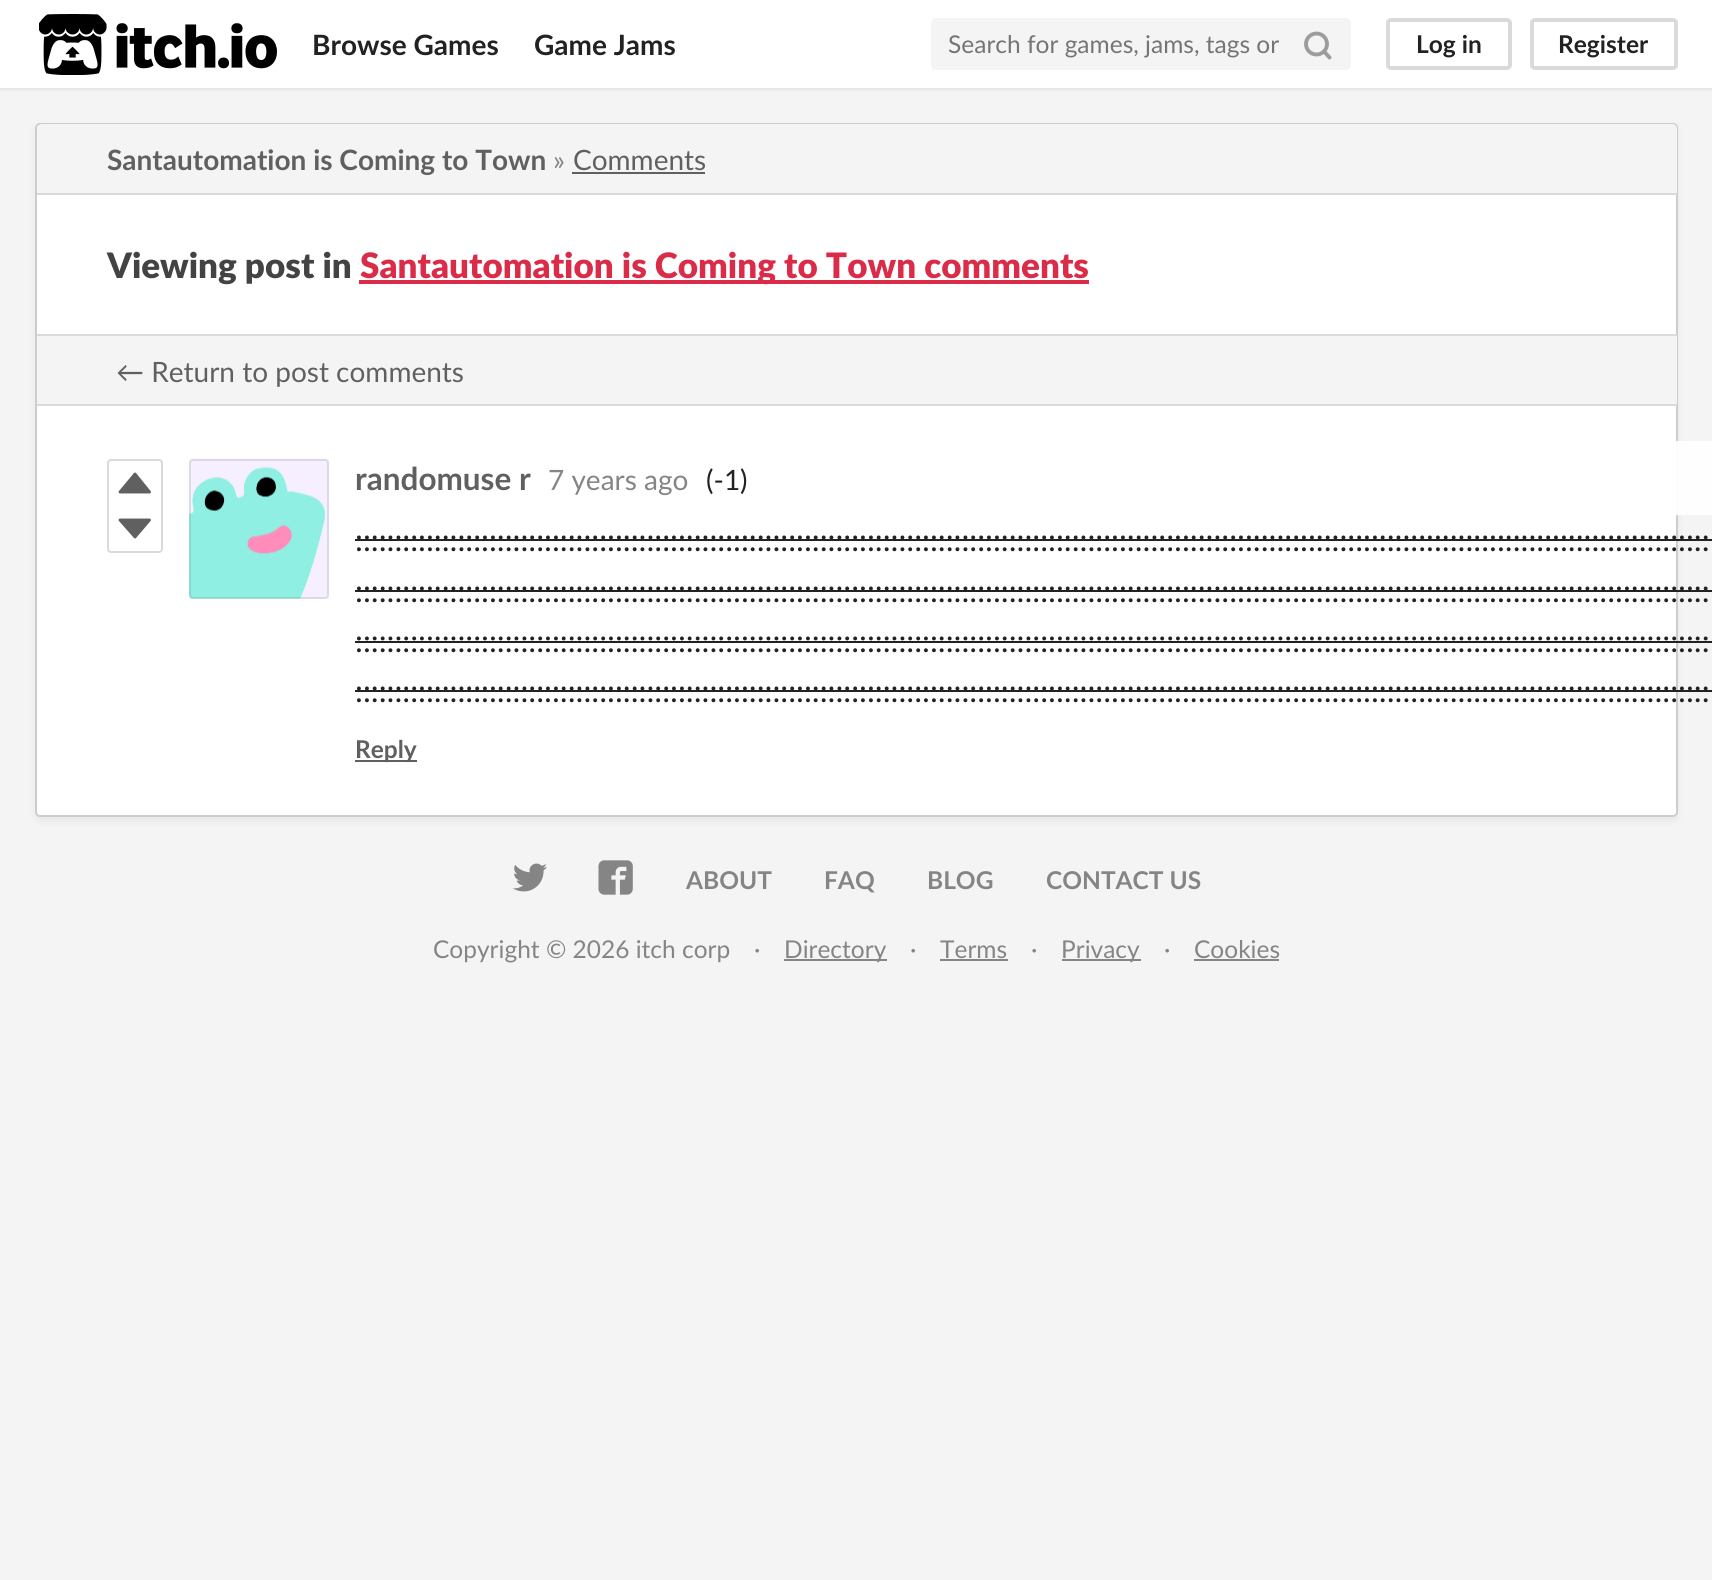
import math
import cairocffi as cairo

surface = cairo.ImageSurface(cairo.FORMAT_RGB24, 1712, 1580)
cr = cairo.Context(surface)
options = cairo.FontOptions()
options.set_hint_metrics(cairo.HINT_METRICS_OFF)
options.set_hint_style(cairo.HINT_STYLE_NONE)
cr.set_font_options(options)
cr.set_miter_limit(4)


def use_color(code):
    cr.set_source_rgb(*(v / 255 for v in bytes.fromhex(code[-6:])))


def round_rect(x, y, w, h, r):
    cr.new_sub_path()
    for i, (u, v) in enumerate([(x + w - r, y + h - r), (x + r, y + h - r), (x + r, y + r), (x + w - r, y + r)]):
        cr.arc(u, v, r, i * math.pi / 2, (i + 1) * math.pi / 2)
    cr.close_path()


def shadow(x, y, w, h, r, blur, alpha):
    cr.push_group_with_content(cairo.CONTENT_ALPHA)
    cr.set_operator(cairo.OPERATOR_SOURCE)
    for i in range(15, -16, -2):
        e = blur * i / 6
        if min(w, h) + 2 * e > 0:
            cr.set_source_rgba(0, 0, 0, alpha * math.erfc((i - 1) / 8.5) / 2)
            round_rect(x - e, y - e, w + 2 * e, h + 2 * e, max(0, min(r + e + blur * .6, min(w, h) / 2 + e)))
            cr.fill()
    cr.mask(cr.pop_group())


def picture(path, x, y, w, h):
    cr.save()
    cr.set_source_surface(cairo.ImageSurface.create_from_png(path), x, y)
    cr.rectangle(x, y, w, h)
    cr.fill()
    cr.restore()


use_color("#f4f4f4")
cr.paint()
use_color("#000000")
shadow(0, 2, 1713, 87, 0, 2, 0.1)
use_color("#ffffff")
cr.rectangle(0, 0, 1712, 88)
cr.fill()
picture("img1.png", 39, 14, 238, 61)
cr.select_font_face("Lato", cairo.FONT_SLANT_NORMAL, cairo.FONT_WEIGHT_BOLD)
cr.set_font_size(28)
use_color("#222222")
cr.move_to(312, 55)
cr.show_text("Browse Games")
cr.move_to(534, 55)
cr.show_text("Game Jams")
use_color("#f4f4f4")
round_rect(931, 18, 420, 52, 5)
cr.fill()
cr.select_font_face("Lato")
cr.set_font_size(24.5)
use_color("#757575")
cr.move_to(948, 53)
cr.show_text("Search for games, jams, tags or")
cr.new_path()
cr.arc(1316.5, 44, 10.5, 0, 2 * math.pi)
use_color("#9c9c9c")
cr.set_line_width(3.9)
cr.stroke()
cr.new_path()
cr.move_to(1329.5, 57.5)
cr.line_to(1324, 51.5)
cr.set_line_cap(cairo.LINE_CAP_ROUND)
cr.set_line_join(cairo.LINE_JOIN_ROUND)
cr.stroke()
round_rect(1388, 20, 122, 48, 3)
use_color("#dadada")
cr.set_line_width(4)
cr.set_line_cap(cairo.LINE_CAP_BUTT)
cr.set_line_join(cairo.LINE_JOIN_MITER)
cr.stroke()
cr.select_font_face("Lato", cairo.FONT_SLANT_NORMAL, cairo.FONT_WEIGHT_BOLD)
use_color("#222222")
cr.move_to(1416, 53)
cr.show_text("Log in")
round_rect(1532, 20, 144, 48, 3)
use_color("#dadada")
cr.stroke()
use_color("#222222")
cr.move_to(1558, 53)
cr.show_text("Register")
use_color("#000000")
shadow(35, 126, 1643, 695, 5, 3.5, 0.05)
use_color("#ffffff")
round_rect(36, 124, 1641, 692, 4)
cr.fill_preserve()
use_color("#cdcdcd")
cr.set_line_width(2)
cr.stroke()
use_color("#f4f4f4")
cr.new_path()
cr.move_to(42, 124)
cr.line_to(1672, 124)
cr.curve_to(1675, 124, 1677, 126, 1677, 129)
cr.line_to(1677, 194)
cr.line_to(37, 194)
cr.line_to(37, 129)
cr.curve_to(37, 126, 39, 124, 42, 124)
cr.close_path()
cr.fill()
use_color("#dadada")
cr.rectangle(37, 193, 1640, 2)
cr.fill()
cr.set_font_size(28)
use_color("#606060")
cr.move_to(107, 170)
cr.show_text("Santautomation is Coming to Town")
cr.select_font_face("Lato")
use_color("#858585")
cr.move_to(553, 170)
cr.show_text("»")
use_color("#606060")
cr.move_to(573, 170)
cr.show_text("Comments")
cr.rectangle(572, 172, 133, 2)
cr.fill()
use_color("#dadada")
cr.rectangle(37, 334, 1640, 2)
cr.fill()
cr.select_font_face("Lato Black")
cr.set_font_size(35)
use_color("#434343")
cr.move_to(107, 278)
cr.show_text("Viewing post in")
use_color("#da2c49")
cr.rectangle(359, 280, 730, 4)
cr.fill()
cr.move_to(360, 278)
cr.show_text("Santautomation is Coming to Town comments")
use_color("#f4f4f4")
cr.rectangle(37, 336, 1640, 68)
cr.fill()
use_color("#dadada")
cr.rectangle(37, 404, 1640, 2)
cr.fill()
cr.select_font_face("Lato")
cr.set_font_size(28)
use_color("#606060")
cr.move_to(116, 382)
cr.show_text("← Return to post comments")
round_rect(108, 460, 54, 92, 3)
use_color("#dadada")
cr.stroke()
use_color("#606060")
cr.new_path()
cr.move_to(120, 492)
cr.line_to(135, 474)
cr.line_to(149.5, 492)
cr.close_path()
cr.fill_preserve()
cr.set_line_width(2.9)
cr.set_line_join(cairo.LINE_JOIN_ROUND)
cr.stroke()
cr.new_path()
cr.move_to(120, 520)
cr.line_to(135, 537)
cr.line_to(149.5, 520)
cr.close_path()
cr.fill_preserve()
cr.stroke()
use_color("#f4f4f4")
round_rect(189, 459, 140, 140, 4)
cr.fill()
picture("img2.png", 189, 458, 140, 141)
round_rect(190, 460, 138, 138, 3)
cr.set_source_rgba(0, 0, 0, 0.1)
cr.set_line_width(2)
cr.set_line_join(cairo.LINE_JOIN_MITER)
cr.stroke()
cr.rectangle(347, 450, 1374, 56)
cr.set_source_rgba(1, 1, 1, 0.95)
cr.set_line_width(18)
cr.stroke()
cr.rectangle(1676, 459, 36, 38)
cr.fill()
cr.select_font_face("Lato", cairo.FONT_SLANT_NORMAL, cairo.FONT_WEIGHT_BOLD)
cr.set_font_size(31.5)
use_color("#606060")
cr.move_to(355, 490)
cr.show_text("randomuse r")
cr.select_font_face("Lato")
cr.set_font_size(28)
use_color("#858585")
cr.move_to(548, 490)
cr.show_text("7 years ago")
use_color("#222222")
cr.move_to(706, 490)
cr.show_text("(-1)")
cr.set_font_size(31.5)
cr.move_to(355, 551)
cr.show_text("::::::::::::::::::::::::::::::::::::::::::::::::::::::::::::::::::::::::::::::::::::::::::::::::::::::::::::::::::::::::::::::::::::::::::::::::::::::::::::::::::::::::::::")
cr.rectangle(355, 539, 1357, 2)
cr.fill()
cr.move_to(355, 602)
cr.show_text("::::::::::::::::::::::::::::::::::::::::::::::::::::::::::::::::::::::::::::::::::::::::::::::::::::::::::::::::::::::::::::::::::::::::::::::::::::::::::::::::::::::::::::")
cr.rectangle(355, 590, 1357, 2)
cr.fill()
cr.move_to(355, 652)
cr.show_text("::::::::::::::::::::::::::::::::::::::::::::::::::::::::::::::::::::::::::::::::::::::::::::::::::::::::::::::::::::::::::::::::::::::::::::::::::::::::::::::::::::::::::::")
cr.rectangle(355, 641, 1357, 2)
cr.fill()
cr.move_to(355, 702)
cr.show_text("::::::::::::::::::::::::::::::::::::::::::::::::::::::::::::::::::::::::::::::::::::::::::::::::::::::::::::::::::::::::::::::::::::::::::::::::::::::::::::::::::::::::::::")
cr.rectangle(355, 690, 1357, 2)
cr.fill()
use_color("#606060")
cr.rectangle(355, 760, 62, 2)
cr.fill()
cr.select_font_face("Lato", cairo.FONT_SLANT_NORMAL, cairo.FONT_WEIGHT_BOLD)
cr.set_font_size(24.5)
cr.move_to(355, 758)
cr.show_text("Reply")
picture("img3.png", 513, 863, 34, 29)
picture("img4.png", 598, 860, 35, 35)
use_color("#858585")
cr.move_to(686, 889)
cr.show_text("ABOUT")
cr.move_to(824, 889)
cr.show_text("FAQ")
cr.move_to(927, 889)
cr.show_text("BLOG")
cr.move_to(1046, 889)
cr.show_text("CONTACT US")
cr.select_font_face("Lato")
cr.move_to(433, 958)
cr.show_text("Copyright © 2026 itch corp")
cr.move_to(754, 958)
cr.show_text("·")
cr.rectangle(784, 959, 103, 2)
cr.fill()
cr.move_to(784, 958)
cr.show_text("Directory")
cr.move_to(910, 958)
cr.show_text("·")
cr.move_to(940, 958)
cr.show_text("Terms")
cr.rectangle(940, 959, 68, 2)
cr.fill()
cr.move_to(1031, 958)
cr.show_text("·")
cr.rectangle(1062, 959, 79, 2)
cr.fill()
cr.move_to(1061, 958)
cr.show_text("Privacy")
cr.move_to(1164, 958)
cr.show_text("·")
cr.move_to(1194, 958)
cr.show_text("Cookies")
cr.rectangle(1194, 959, 85, 2)
cr.fill()
surface.write_to_png("result.png")
